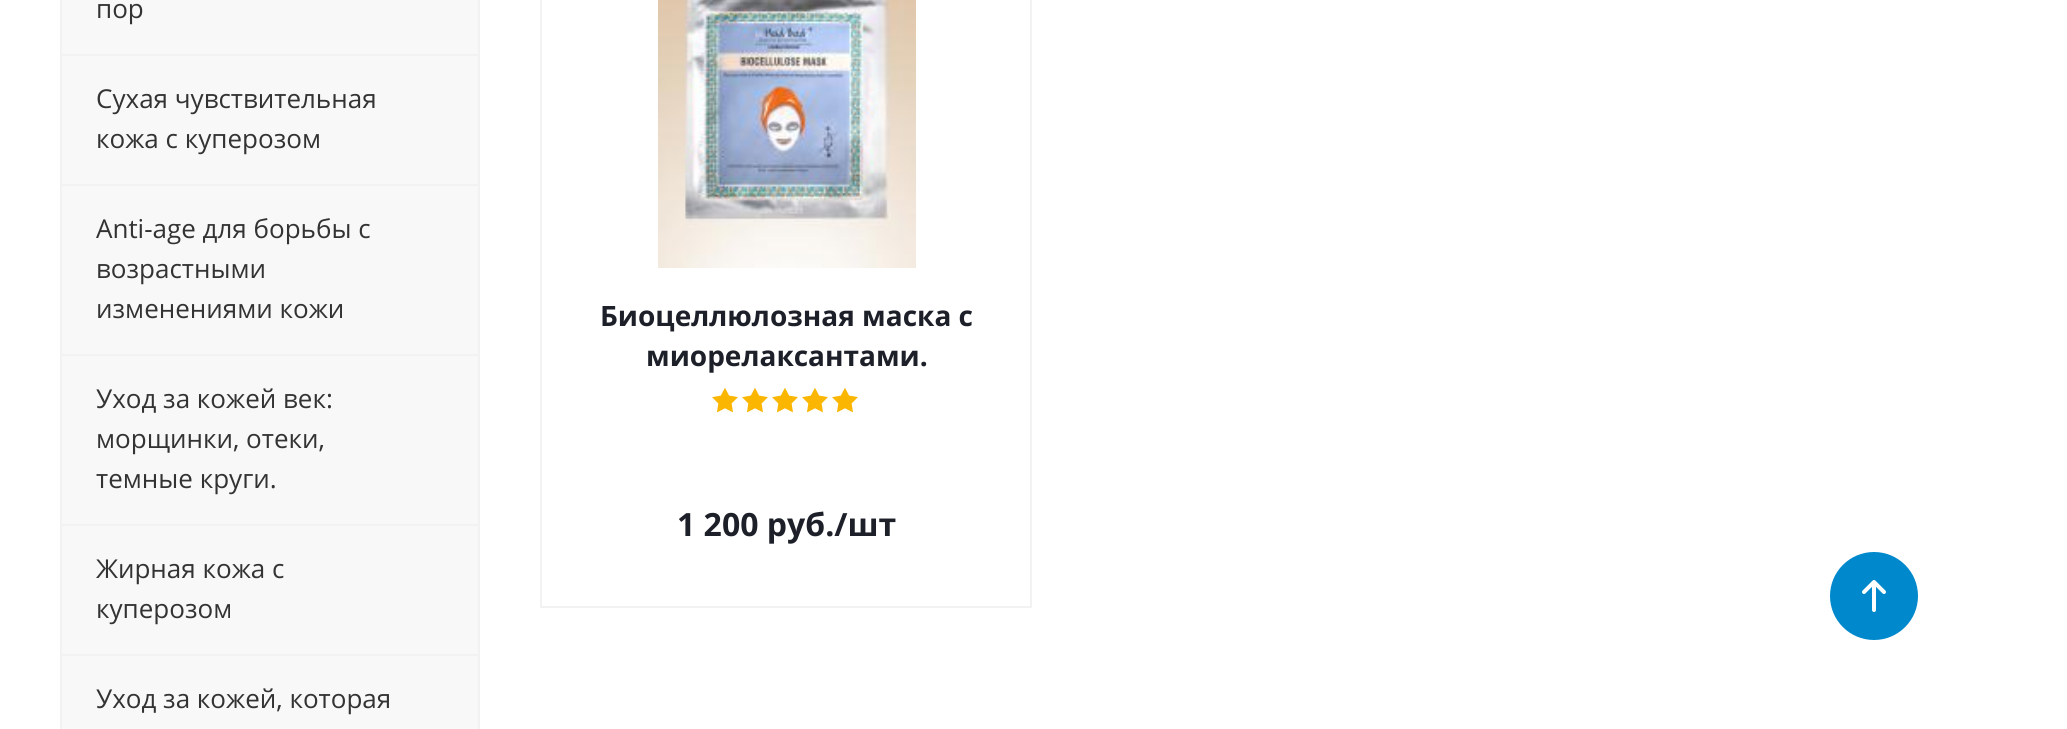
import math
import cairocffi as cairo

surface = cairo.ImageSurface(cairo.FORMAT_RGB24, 2067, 729)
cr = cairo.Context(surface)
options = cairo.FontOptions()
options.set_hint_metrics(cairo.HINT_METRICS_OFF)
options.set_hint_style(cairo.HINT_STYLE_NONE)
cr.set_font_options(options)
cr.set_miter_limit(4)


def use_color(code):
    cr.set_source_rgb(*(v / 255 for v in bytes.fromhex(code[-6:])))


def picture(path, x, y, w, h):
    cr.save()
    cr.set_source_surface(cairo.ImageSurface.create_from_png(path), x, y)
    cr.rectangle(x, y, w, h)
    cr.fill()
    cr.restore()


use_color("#ffffff")
cr.paint()
use_color("#f8f8f9")
cr.rectangle(62, 0, 416, 54)
cr.fill()
use_color("#f2f2f2")
cr.rectangle(478, 0, 2, 54)
cr.fill()
cr.rectangle(60, 0, 2, 54)
cr.fill()
cr.select_font_face("Open Sans")
cr.set_font_size(26)
use_color("#333333")
cr.move_to(96, 18)
cr.show_text("пор")
use_color("#f8f8f9")
cr.rectangle(62, 56, 416, 128)
cr.fill()
use_color("#f2f2f2")
cr.rectangle(60, 54, 420, 2)
cr.fill()
cr.rectangle(478, 54, 2, 130)
cr.fill()
cr.rectangle(60, 54, 2, 130)
cr.fill()
use_color("#333333")
cr.move_to(96, 108)
cr.show_text("Сухая чувствительная")
cr.move_to(96, 148)
cr.show_text("кожа с куперозом")
use_color("#f8f8f9")
cr.rectangle(62, 186, 416, 168)
cr.fill()
use_color("#f2f2f2")
cr.rectangle(60, 184, 420, 2)
cr.fill()
cr.rectangle(478, 184, 2, 170)
cr.fill()
cr.rectangle(60, 184, 2, 170)
cr.fill()
use_color("#333333")
cr.move_to(96, 238)
cr.show_text("Anti-age для борьбы с")
cr.move_to(96, 278)
cr.show_text("возрастными")
cr.move_to(96, 318)
cr.show_text("изменениями кожи")
use_color("#f8f8f9")
cr.rectangle(62, 356, 416, 168)
cr.fill()
use_color("#f2f2f2")
cr.rectangle(60, 354, 420, 2)
cr.fill()
cr.rectangle(478, 354, 2, 170)
cr.fill()
cr.rectangle(60, 354, 2, 170)
cr.fill()
use_color("#333333")
cr.move_to(96, 408)
cr.show_text("Уход за кожей век:")
cr.move_to(96, 448)
cr.show_text("морщинки, отеки,")
cr.move_to(96, 488)
cr.show_text("темные круги.")
use_color("#f8f8f9")
cr.rectangle(62, 526, 416, 128)
cr.fill()
use_color("#f2f2f2")
cr.rectangle(60, 524, 420, 2)
cr.fill()
cr.rectangle(478, 524, 2, 130)
cr.fill()
cr.rectangle(60, 524, 2, 130)
cr.fill()
use_color("#333333")
cr.move_to(96, 578)
cr.show_text("Жирная кожа с")
cr.move_to(96, 618)
cr.show_text("куперозом")
use_color("#f8f8f9")
cr.rectangle(62, 656, 416, 73)
cr.fill()
use_color("#f2f2f2")
cr.rectangle(60, 654, 420, 2)
cr.fill()
cr.rectangle(478, 654, 2, 75)
cr.fill()
cr.rectangle(60, 654, 2, 75)
cr.fill()
use_color("#333333")
cr.move_to(96, 708)
cr.show_text("Уход за кожей, которая")
cr.rectangle(541, -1, 490, 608)
use_color("#f2f2f2")
cr.stroke()
picture("img1.png", 658, 0, 258, 268)
cr.select_font_face("Open Sans", cairo.FONT_SLANT_NORMAL, cairo.FONT_WEIGHT_BOLD)
cr.set_font_size(28)
use_color("#1d2029")
cr.move_to(600, 326)
cr.show_text("Биоцеллюлозная маска с")
cr.move_to(646, 366)
cr.show_text("миорелаксантами.")
picture("img2.png", 712, 388, 26, 25)
picture("img2.png", 742, 388, 26, 25)
picture("img2.png", 772, 388, 26, 25)
picture("img2.png", 802, 388, 26, 25)
picture("img2.png", 832, 388, 26, 25)
cr.set_font_size(32)
cr.move_to(677, 536)
cr.show_text("1 200 руб./шт")
use_color("#0088cc")
cr.new_path()
cr.arc(1874, 596, 44, 0, 2 * math.pi)
cr.fill()
cr.new_path()
cr.move_to(1874, 582)
cr.line_to(1874, 610)
cr.move_to(1864, 592)
cr.line_to(1874, 582)
cr.line_to(1884, 592)
use_color("#ffffff")
cr.set_line_width(4)
cr.set_line_cap(cairo.LINE_CAP_ROUND)
cr.set_line_join(cairo.LINE_JOIN_ROUND)
cr.stroke()
surface.write_to_png("result.png")
